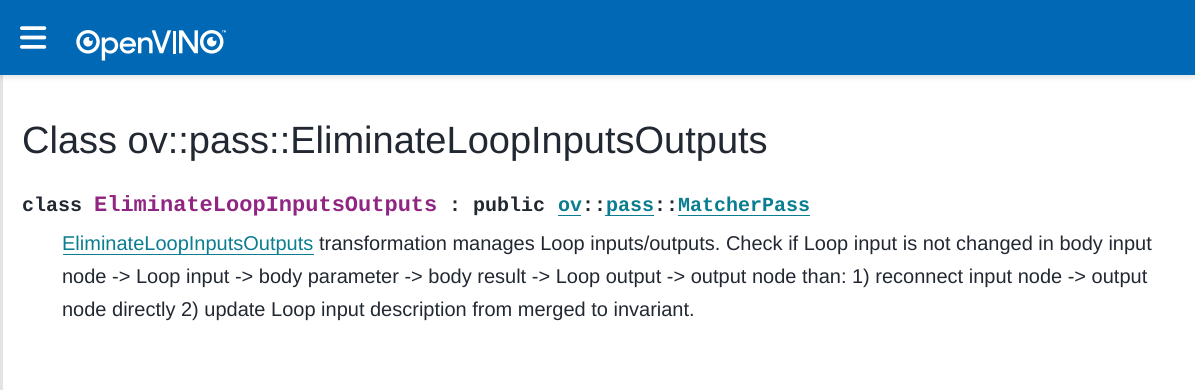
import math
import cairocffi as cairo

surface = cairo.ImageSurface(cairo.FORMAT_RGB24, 1195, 390)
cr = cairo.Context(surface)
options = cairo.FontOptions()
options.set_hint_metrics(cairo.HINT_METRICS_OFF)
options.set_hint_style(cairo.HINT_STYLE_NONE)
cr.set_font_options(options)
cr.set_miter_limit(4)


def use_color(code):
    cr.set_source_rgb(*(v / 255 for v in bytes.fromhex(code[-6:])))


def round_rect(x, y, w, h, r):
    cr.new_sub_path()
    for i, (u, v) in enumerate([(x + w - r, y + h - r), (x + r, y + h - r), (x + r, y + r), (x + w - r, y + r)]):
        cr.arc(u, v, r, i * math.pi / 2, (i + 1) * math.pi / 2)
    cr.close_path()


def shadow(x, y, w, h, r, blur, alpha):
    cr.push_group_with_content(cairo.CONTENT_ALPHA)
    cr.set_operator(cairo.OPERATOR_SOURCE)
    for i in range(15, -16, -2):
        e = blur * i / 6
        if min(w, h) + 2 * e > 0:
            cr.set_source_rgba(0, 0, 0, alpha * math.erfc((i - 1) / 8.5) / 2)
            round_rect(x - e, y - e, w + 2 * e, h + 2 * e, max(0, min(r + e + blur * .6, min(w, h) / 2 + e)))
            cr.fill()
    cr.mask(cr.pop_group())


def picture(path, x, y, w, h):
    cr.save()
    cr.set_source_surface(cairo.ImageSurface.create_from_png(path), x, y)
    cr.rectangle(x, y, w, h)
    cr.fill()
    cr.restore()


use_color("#ffffff")
cr.paint()
use_color("#e3e3e3")
cr.rectangle(0, 75, 3, 315)
cr.fill()
use_color("#000000")
shadow(0, 3, 1195, 75, 0, 2.5, 0.1)
use_color("#0068b5")
cr.rectangle(0, 0, 1195, 75)
cr.fill()
picture("img1.png", 20, 26, 27, 23)
picture("img2.png", 76, 30, 150, 31)
cr.select_font_face("Liberation Sans")
cr.set_font_size(38)
use_color("#222832")
cr.move_to(22, 153)
cr.show_text("Class ov::pass::EliminateLoopInputsOutputs")
cr.select_font_face("Liberation Mono", cairo.FONT_SLANT_NORMAL, cairo.FONT_WEIGHT_BOLD)
cr.set_font_size(20)
cr.move_to(22, 211)
cr.show_text("class")
cr.set_font_size(22)
use_color("#912583")
cr.move_to(94, 211)
cr.show_text("EliminateLoopInputsOutputs")
cr.set_font_size(20)
use_color("#222832")
cr.move_to(449, 211)
cr.show_text(": public")
use_color("#0a7d91")
cr.move_to(558, 211)
cr.show_text("ov")
cr.rectangle(558, 215, 23, 1)
cr.fill()
use_color("#222832")
cr.move_to(582, 211)
cr.show_text("::")
use_color("#0a7d91")
cr.rectangle(605, 215, 49, 1)
cr.fill()
cr.move_to(606, 211)
cr.show_text("pass")
use_color("#222832")
cr.move_to(654, 211)
cr.show_text("::")
use_color("#0a7d91")
cr.move_to(678, 211)
cr.show_text("MatcherPass")
cr.rectangle(678, 215, 132, 1)
cr.fill()
cr.rectangle(63, 254, 251, 1)
cr.fill()
cr.select_font_face("Liberation Sans")
cr.move_to(62, 250)
cr.show_text("EliminateLoopInputsOutputs")
use_color("#222832")
cr.move_to(319, 250)
cr.show_text("transformation manages Loop inputs/outputs. Check if Loop input is not changed in body input")
cr.move_to(62, 283)
cr.show_text("node -> Loop input -> body parameter -> body result -> Loop output -> output node than: 1) reconnect input node -> output")
cr.move_to(62, 316)
cr.show_text("node directly 2) update Loop input description from merged to invariant.")
surface.write_to_png("result.png")
